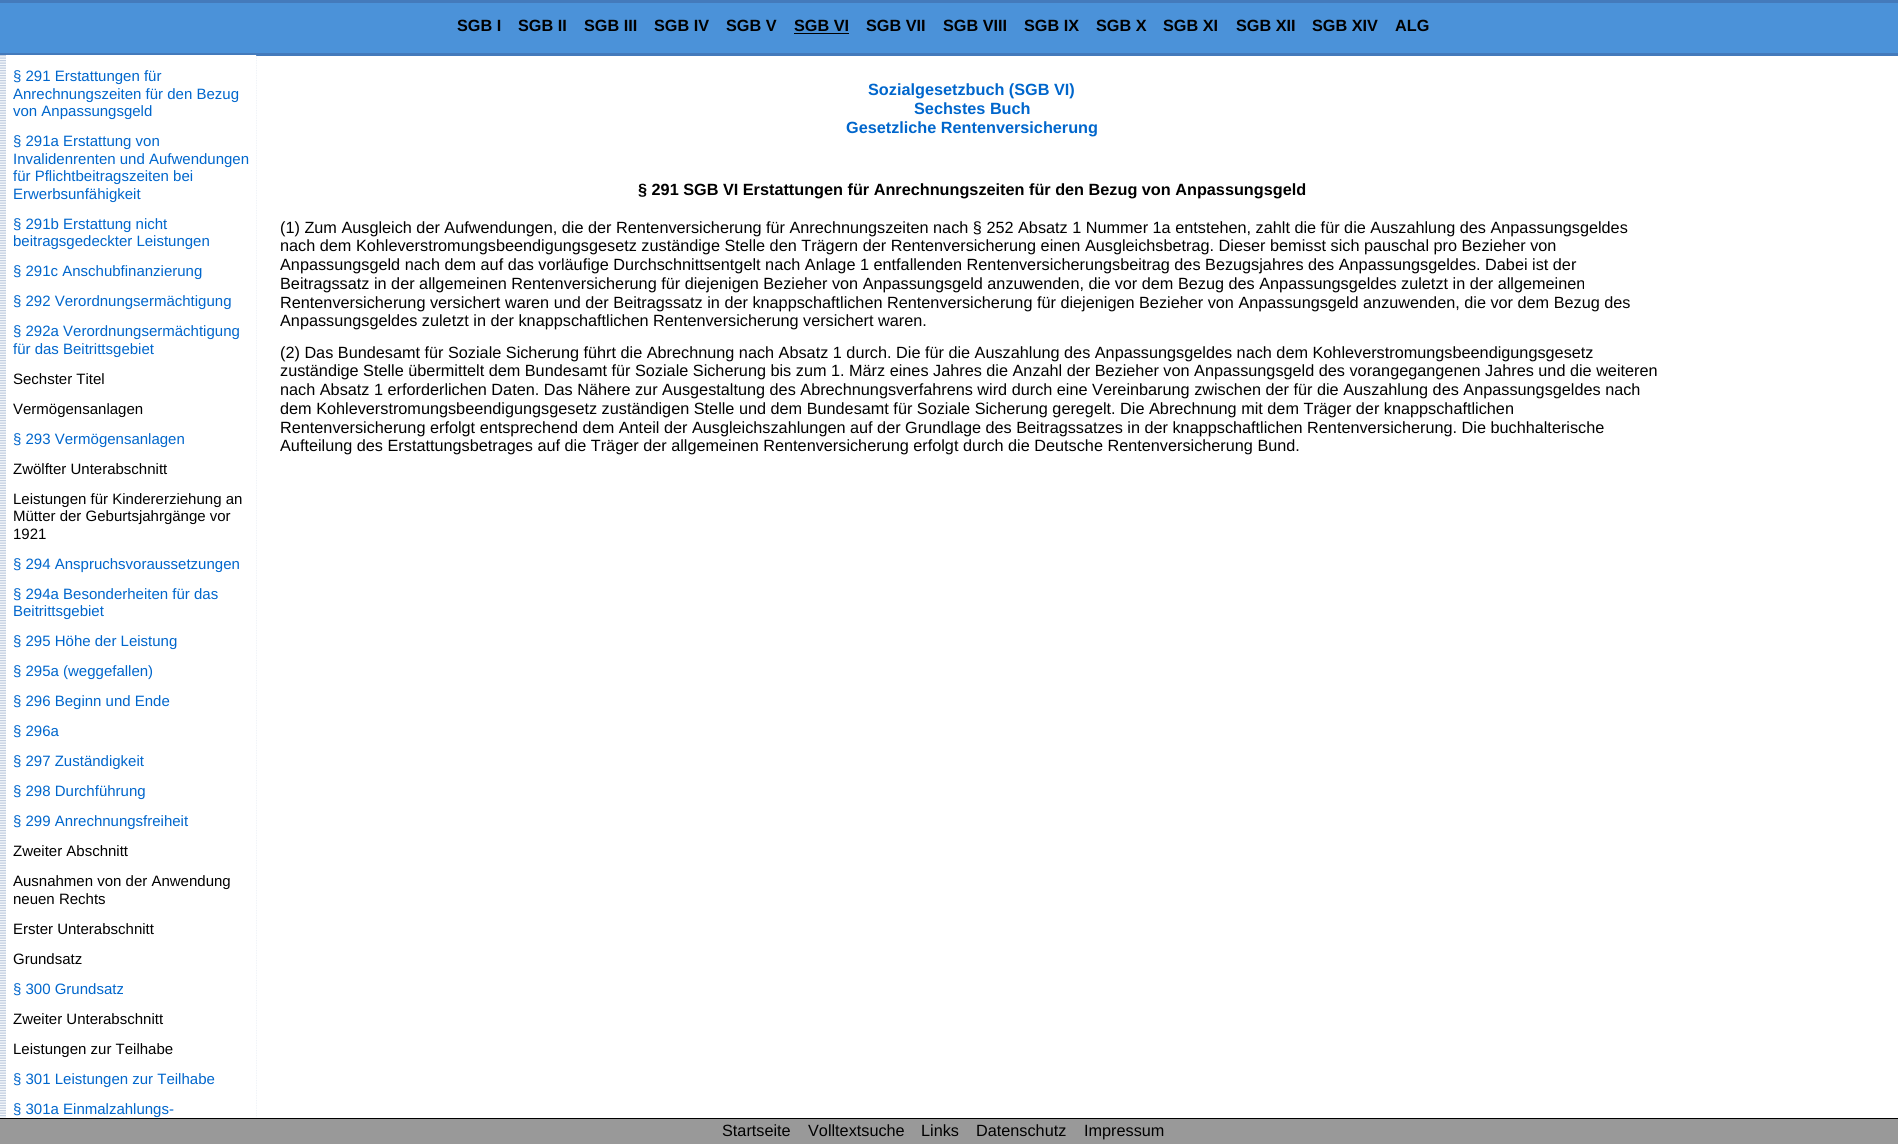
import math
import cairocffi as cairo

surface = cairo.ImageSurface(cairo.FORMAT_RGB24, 1898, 1144)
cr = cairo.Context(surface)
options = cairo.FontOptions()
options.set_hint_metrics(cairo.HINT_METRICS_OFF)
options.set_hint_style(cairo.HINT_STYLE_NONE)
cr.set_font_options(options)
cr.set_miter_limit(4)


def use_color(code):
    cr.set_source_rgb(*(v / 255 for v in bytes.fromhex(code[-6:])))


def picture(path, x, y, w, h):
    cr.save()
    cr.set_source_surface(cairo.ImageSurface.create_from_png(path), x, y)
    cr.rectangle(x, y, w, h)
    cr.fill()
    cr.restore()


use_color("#ffffff")
cr.paint()
use_color("#4b92d9")
cr.rectangle(0, 3, 1898, 50)
cr.fill()
use_color("#447abb")
cr.rectangle(0, 0, 1898, 3)
cr.fill()
cr.rectangle(0, 53, 1898, 3)
cr.fill()
cr.select_font_face("Liberation Sans", cairo.FONT_SLANT_NORMAL, cairo.FONT_WEIGHT_BOLD)
cr.set_font_size(16.25)
use_color("#000000")
cr.move_to(457, 31)
cr.show_text("SGB I")
cr.move_to(518, 31)
cr.show_text("SGB II")
cr.move_to(584, 31)
cr.show_text("SGB III")
cr.move_to(654, 31)
cr.show_text("SGB IV")
cr.move_to(726, 31)
cr.show_text("SGB V")
cr.move_to(794, 31)
cr.show_text("SGB VI")
cr.rectangle(794, 33, 55, 1)
cr.fill()
cr.move_to(866, 31)
cr.show_text("SGB VII")
cr.move_to(943, 31)
cr.show_text("SGB VIII")
cr.move_to(1024, 31)
cr.show_text("SGB IX")
cr.move_to(1096, 31)
cr.show_text("SGB X")
cr.move_to(1163, 31)
cr.show_text("SGB XI")
cr.move_to(1236, 31)
cr.show_text("SGB XII")
cr.move_to(1312, 31)
cr.show_text("SGB XIV")
cr.move_to(1395, 31)
cr.show_text("ALG")
picture("img1.png", 0, 55, 257, 1063)
use_color("#ffffff")
cr.rectangle(6, 55, 250, 1063)
cr.fill()
cr.select_font_face("Liberation Sans")
cr.set_font_size(15)
use_color("#0066cc")
cr.move_to(13, 81)
cr.show_text("§ 291 Erstattungen für")
cr.move_to(13, 99)
cr.show_text("Anrechnungszeiten für den Bezug")
cr.move_to(13, 116)
cr.show_text("von Anpassungsgeld")
cr.move_to(13, 146)
cr.show_text("§ 291a Erstattung von")
cr.move_to(13, 164)
cr.show_text("Invalidenrenten und Aufwendungen")
cr.move_to(13, 181)
cr.show_text("für Pflichtbeitragszeiten bei")
cr.move_to(13, 199)
cr.show_text("Erwerbsunfähigkeit")
cr.move_to(13, 229)
cr.show_text("§ 291b Erstattung nicht")
cr.move_to(13, 246)
cr.show_text("beitragsgedeckter Leistungen")
cr.move_to(13, 276)
cr.show_text("§ 291c Anschubfinanzierung")
cr.move_to(13, 306)
cr.show_text("§ 292 Verordnungsermächtigung")
cr.move_to(13, 336)
cr.show_text("§ 292a Verordnungsermächtigung")
cr.move_to(13, 354)
cr.show_text("für das Beitrittsgebiet")
use_color("#000000")
cr.move_to(13, 384)
cr.show_text("Sechster Titel")
cr.move_to(13, 414)
cr.show_text("Vermögensanlagen")
use_color("#0066cc")
cr.move_to(13, 444)
cr.show_text("§ 293 Vermögensanlagen")
use_color("#000000")
cr.move_to(13, 474)
cr.show_text("Zwölfter Unterabschnitt")
cr.move_to(13, 504)
cr.show_text("Leistungen für Kindererziehung an")
cr.move_to(13, 521)
cr.show_text("Mütter der Geburtsjahrgänge vor")
cr.move_to(13, 539)
cr.show_text("1921")
use_color("#0066cc")
cr.move_to(13, 569)
cr.show_text("§ 294 Anspruchsvoraussetzungen")
cr.move_to(13, 599)
cr.show_text("§ 294a Besonderheiten für das")
cr.move_to(13, 616)
cr.show_text("Beitrittsgebiet")
cr.move_to(13, 646)
cr.show_text("§ 295 Höhe der Leistung")
cr.move_to(13, 676)
cr.show_text("§ 295a (weggefallen)")
cr.move_to(13, 706)
cr.show_text("§ 296 Beginn und Ende")
cr.move_to(13, 736)
cr.show_text("§ 296a")
cr.move_to(13, 766)
cr.show_text("§ 297 Zuständigkeit")
cr.move_to(13, 796)
cr.show_text("§ 298 Durchführung")
cr.move_to(13, 826)
cr.show_text("§ 299 Anrechnungsfreiheit")
use_color("#000000")
cr.move_to(13, 856)
cr.show_text("Zweiter Abschnitt")
cr.move_to(13, 886)
cr.show_text("Ausnahmen von der Anwendung")
cr.move_to(13, 904)
cr.show_text("neuen Rechts")
cr.move_to(13, 934)
cr.show_text("Erster Unterabschnitt")
cr.move_to(13, 964)
cr.show_text("Grundsatz")
use_color("#0066cc")
cr.move_to(13, 994)
cr.show_text("§ 300 Grundsatz")
use_color("#000000")
cr.move_to(13, 1024)
cr.show_text("Zweiter Unterabschnitt")
cr.move_to(13, 1054)
cr.show_text("Leistungen zur Teilhabe")
use_color("#0066cc")
cr.move_to(13, 1084)
cr.show_text("§ 301 Leistungen zur Teilhabe")
cr.move_to(13, 1114)
cr.show_text("§ 301a Einmalzahlungs-")
cr.select_font_face("Liberation Sans", cairo.FONT_SLANT_NORMAL, cairo.FONT_WEIGHT_BOLD)
cr.set_font_size(16.25)
cr.move_to(868, 95)
cr.show_text("Sozialgesetzbuch (SGB VI)")
cr.move_to(914, 114)
cr.show_text("Sechstes Buch")
cr.move_to(846, 133)
cr.show_text("Gesetzliche Rentenversicherung")
use_color("#000000")
cr.move_to(638, 195)
cr.show_text("§ 291 SGB VI Erstattungen für Anrechnungszeiten für den Bezug von Anpassungsgeld")
cr.select_font_face("Liberation Sans")
cr.move_to(280, 233)
cr.show_text("(1) Zum Ausgleich der Aufwendungen, die der Rentenversicherung für Anrechnungszeiten nach § 252 Absatz 1 Nummer 1a entstehen, zahlt die für die Auszahlung des Anpassungsgeldes")
cr.move_to(280, 251)
cr.show_text("nach dem Kohleverstromungsbeendigungsgesetz zuständige Stelle den Trägern der Rentenversicherung einen Ausgleichsbetrag. Dieser bemisst sich pauschal pro Bezieher von")
cr.move_to(280, 270)
cr.show_text("Anpassungsgeld nach dem auf das vorläufige Durchschnittsentgelt nach Anlage 1 entfallenden Rentenversicherungsbeitrag des Bezugsjahres des Anpassungsgeldes. Dabei ist der")
cr.move_to(280, 289)
cr.show_text("Beitragssatz in der allgemeinen Rentenversicherung für diejenigen Bezieher von Anpassungsgeld anzuwenden, die vor dem Bezug des Anpassungsgeldes zuletzt in der allgemeinen")
cr.move_to(280, 308)
cr.show_text("Rentenversicherung versichert waren und der Beitragssatz in der knappschaftlichen Rentenversicherung für diejenigen Bezieher von Anpassungsgeld anzuwenden, die vor dem Bezug des")
cr.move_to(280, 326)
cr.show_text("Anpassungsgeldes zuletzt in der knappschaftlichen Rentenversicherung versichert waren.")
cr.move_to(280, 358)
cr.show_text("(2) Das Bundesamt für Soziale Sicherung führt die Abrechnung nach Absatz 1 durch. Die für die Auszahlung des Anpassungsgeldes nach dem Kohleverstromungsbeendigungsgesetz")
cr.move_to(280, 376)
cr.show_text("zuständige Stelle übermittelt dem Bundesamt für Soziale Sicherung bis zum 1. März eines Jahres die Anzahl der Bezieher von Anpassungsgeld des vorangegangenen Jahres und die weiteren")
cr.move_to(280, 395)
cr.show_text("nach Absatz 1 erforderlichen Daten. Das Nähere zur Ausgestaltung des Abrechnungsverfahrens wird durch eine Vereinbarung zwischen der für die Auszahlung des Anpassungsgeldes nach")
cr.move_to(280, 414)
cr.show_text("dem Kohleverstromungsbeendigungsgesetz zuständigen Stelle und dem Bundesamt für Soziale Sicherung geregelt. Die Abrechnung mit dem Träger der knappschaftlichen")
cr.move_to(280, 433)
cr.show_text("Rentenversicherung erfolgt entsprechend dem Anteil der Ausgleichszahlungen auf der Grundlage des Beitragssatzes in der knappschaftlichen Rentenversicherung. Die buchhalterische")
cr.move_to(280, 451)
cr.show_text("Aufteilung des Erstattungsbetrages auf die Träger der allgemeinen Rentenversicherung erfolgt durch die Deutsche Rentenversicherung Bund.")
use_color("#999999")
cr.rectangle(0, 1119, 1898, 25)
cr.fill()
use_color("#000000")
cr.rectangle(0, 1118, 1898, 1)
cr.fill()
cr.move_to(722, 1136)
cr.show_text("Startseite")
cr.move_to(808, 1136)
cr.show_text("Volltextsuche")
cr.move_to(921, 1136)
cr.show_text("Links")
cr.move_to(976, 1136)
cr.show_text("Datenschutz")
cr.move_to(1084, 1136)
cr.show_text("Impressum")
surface.write_to_png("result.png")
